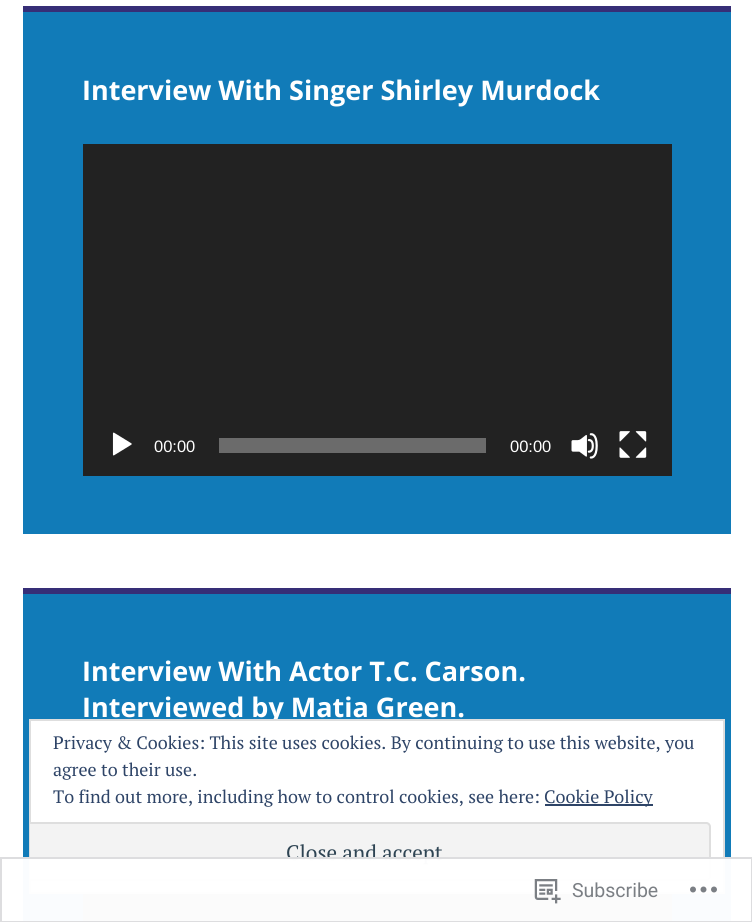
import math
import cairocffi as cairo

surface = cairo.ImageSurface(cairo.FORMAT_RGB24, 752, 922)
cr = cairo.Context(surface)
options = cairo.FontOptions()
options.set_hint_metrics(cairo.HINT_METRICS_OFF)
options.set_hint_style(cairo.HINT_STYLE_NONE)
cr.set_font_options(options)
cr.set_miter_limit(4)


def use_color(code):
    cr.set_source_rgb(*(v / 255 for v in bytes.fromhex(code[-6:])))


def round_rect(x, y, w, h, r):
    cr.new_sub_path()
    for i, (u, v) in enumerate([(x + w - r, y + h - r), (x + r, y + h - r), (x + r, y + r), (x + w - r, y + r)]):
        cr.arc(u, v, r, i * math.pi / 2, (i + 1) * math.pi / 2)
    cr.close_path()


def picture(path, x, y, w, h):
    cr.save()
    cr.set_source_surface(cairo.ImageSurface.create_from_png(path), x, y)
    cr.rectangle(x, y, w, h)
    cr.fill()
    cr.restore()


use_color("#ffffff")
cr.paint()
use_color("#117bb8")
cr.rectangle(23, 12, 708, 522)
cr.fill()
use_color("#362e77")
cr.rectangle(23, 6, 708, 6)
cr.fill()
cr.select_font_face("Open Sans", cairo.FONT_SLANT_NORMAL, cairo.FONT_WEIGHT_BOLD)
cr.set_font_size(27)
use_color("#ffffff")
cr.move_to(82, 100)
cr.show_text("Interview With Singer Shirley Murdock")
use_color("#222222")
cr.rectangle(83, 144, 589, 332)
cr.fill()
picture("img1.png", 112, 432, 20, 24)
cr.select_font_face("Liberation Sans")
cr.set_font_size(16.5)
use_color("#ffffff")
cr.move_to(154, 452)
cr.show_text("00:00")
use_color("#6b6b6b")
cr.rectangle(219, 438, 267, 15)
cr.fill()
use_color("#ffffff")
cr.move_to(510, 452)
cr.show_text("00:00")
picture("img2.png", 571, 433, 27, 26)
picture("img3.png", 619, 431, 28, 27)
use_color("#117bb8")
cr.rectangle(23, 594, 708, 328)
cr.fill()
use_color("#362e77")
cr.rectangle(23, 588, 708, 6)
cr.fill()
cr.select_font_face("Open Sans", cairo.FONT_SLANT_NORMAL, cairo.FONT_WEIGHT_BOLD)
cr.set_font_size(27)
use_color("#ffffff")
cr.move_to(82, 681)
cr.show_text("Interview With Actor T.C. Carson.")
cr.move_to(82, 717)
cr.show_text("Interviewed by Matia Green.")
use_color("#222222")
cr.rectangle(83, 894, 589, 28)
cr.fill()
use_color("#ffffff")
cr.rectangle(30, 720, 694, 173)
cr.fill_preserve()
use_color("#dedede")
cr.stroke()
cr.select_font_face("PT Serif")
cr.set_font_size(18)
use_color("#2e4467")
cr.move_to(53, 749)
cr.show_text("Privacy & Cookies: This site uses cookies. By continuing to use this website, you")
cr.move_to(53, 776)
cr.show_text("agree to their use.")
cr.move_to(53, 803)
cr.show_text("To find out more, including how to control cookies, see here:")
cr.rectangle(545, 804, 108, 2)
cr.fill()
cr.move_to(544, 803)
cr.show_text("Cookie Policy")
use_color("#f3f3f3")
cr.new_path()
cr.move_to(30, 822)
cr.line_to(706, 822)
cr.curve_to(709, 822, 711, 824, 711, 827)
cr.line_to(711, 876)
cr.curve_to(711, 879, 709, 881, 706, 881)
cr.line_to(30, 881)
cr.close_path()
cr.fill()
cr.save()
cr.rectangle(30, 720, 693, 173)
cr.clip()
round_rect(19, 823, 691, 57, 4)
use_color("#dedede")
cr.stroke()
cr.restore()
cr.set_font_size(21)
use_color("#2e4453")
cr.move_to(286, 860)
cr.show_text("Close and accept")
cr.set_source_rgba(1, 1, 1, 0.98)
cr.rectangle(23, 857, 708, 65)
cr.fill()
cr.rectangle(1, 858, 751, 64)
cr.set_source_rgba(0.863, 0.863, 0.871, 0.98)
cr.stroke()
picture("img4.png", 534, 879, 27, 25)
cr.select_font_face("Roboto")
cr.set_font_size(19.5)
use_color("#7b7f84")
cr.move_to(572, 897)
cr.show_text("Subscribe")
picture("img5.png", 690, 886, 27, 7)
surface.write_to_png("result.png")
